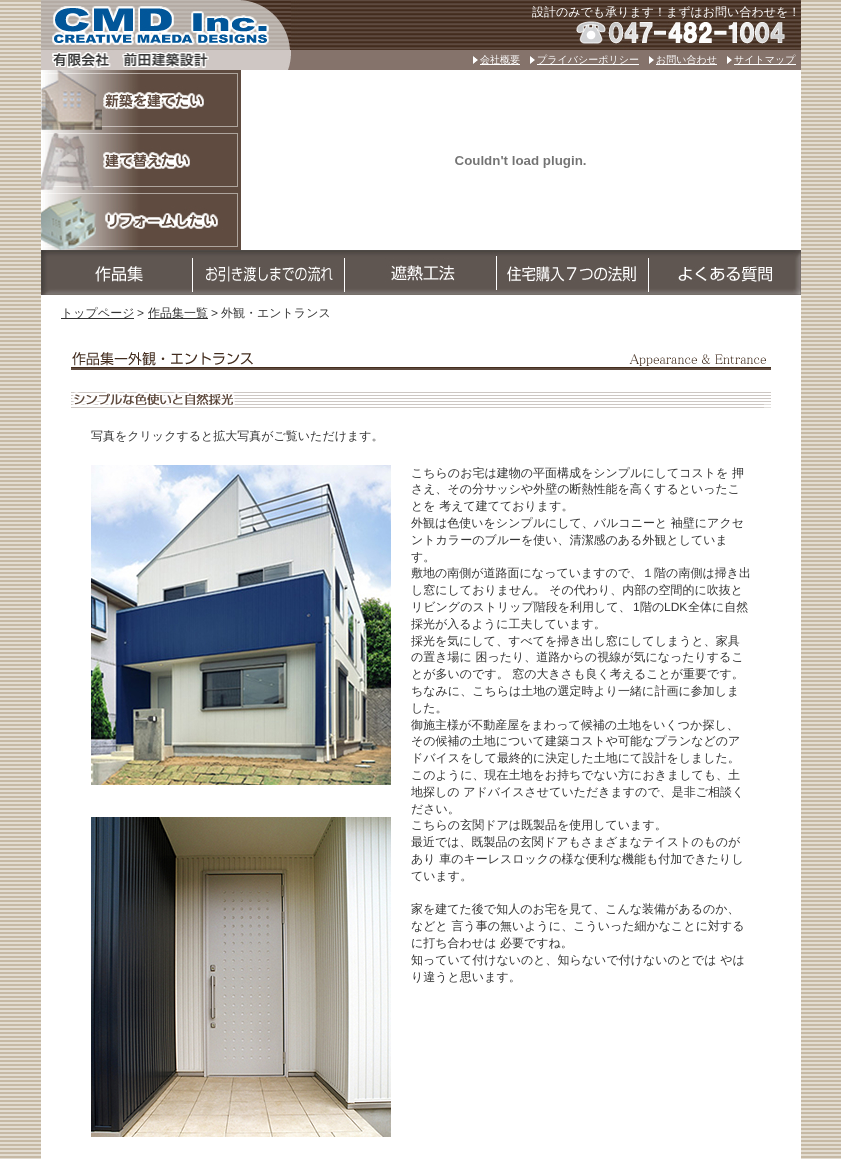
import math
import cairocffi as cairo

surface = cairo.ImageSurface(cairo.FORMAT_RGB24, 841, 1159)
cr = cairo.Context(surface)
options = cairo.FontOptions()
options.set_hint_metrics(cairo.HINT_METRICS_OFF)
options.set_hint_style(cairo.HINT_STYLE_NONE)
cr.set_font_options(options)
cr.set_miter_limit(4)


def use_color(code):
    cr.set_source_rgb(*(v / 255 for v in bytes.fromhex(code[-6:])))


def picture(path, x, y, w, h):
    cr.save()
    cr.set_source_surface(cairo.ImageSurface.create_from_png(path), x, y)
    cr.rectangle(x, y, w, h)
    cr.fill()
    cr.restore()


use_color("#ffffff")
cr.paint()
picture("img1.png", 0, 0, 841, 1159)
use_color("#ffffff")
cr.rectangle(41, 70, 760, 1089)
cr.fill()
picture("img2.png", 41, 0, 250, 50)
picture("img3.png", 291, 0, 510, 50)
cr.select_font_face("WenQuanYi Zen Hei Medium")
cr.set_font_size(12)
cr.move_to(532, 16)
cr.show_text("設計のみでも承ります！まずはお問い合わせを！")
use_color("#85736b")
cr.rectangle(291, 50, 510, 20)
cr.fill()
picture("img4.png", 41, 50, 250, 20)
picture("img5.png", 473, 56, 5, 8)
use_color("#ffffff")
cr.rectangle(480, 64, 40, 1)
cr.fill()
cr.set_font_size(10)
cr.move_to(480, 63)
cr.show_text("会社概要")
picture("img5.png", 530, 56, 5, 8)
cr.rectangle(537, 64, 102, 1)
cr.fill()
cr.move_to(537, 63)
cr.show_text("プライバシーポリシー")
picture("img5.png", 649, 56, 5, 8)
cr.rectangle(656, 64, 61, 1)
cr.fill()
cr.move_to(656, 63)
cr.show_text("お問い合わせ")
picture("img5.png", 727, 56, 5, 8)
cr.rectangle(734, 64, 62, 1)
cr.fill()
cr.move_to(734, 63)
cr.show_text("サイトマップ")
picture("img6.png", 41, 70, 200, 60)
picture("img7.png", 41, 130, 200, 60)
picture("img8.png", 41, 190, 200, 60)
picture("img9.png", 455, 156, 131, 12)
picture("img10.png", 41, 250, 152, 45)
picture("img11.png", 193, 250, 152, 45)
picture("img12.png", 345, 250, 152, 45)
picture("img13.png", 497, 250, 152, 45)
picture("img14.png", 649, 250, 152, 45)
use_color("#333333")
cr.rectangle(61, 318, 73, 1)
cr.fill()
cr.set_font_size(12)
cr.move_to(61, 317)
cr.show_text("トップページ")
cr.select_font_face("Liberation Sans")
cr.move_to(137, 317)
cr.show_text(">")
cr.rectangle(148, 318, 60, 1)
cr.fill()
cr.select_font_face("WenQuanYi Zen Hei Medium")
cr.move_to(148, 317)
cr.show_text("作品集一覧")
cr.select_font_face("Liberation Sans")
cr.move_to(211, 317)
cr.show_text(">")
cr.select_font_face("WenQuanYi Zen Hei Medium")
cr.move_to(221, 317)
cr.show_text("外観・エントランス")
picture("img15.png", 71, 352, 700, 18)
picture("img16.png", 71, 392, 700, 16)
cr.move_to(91, 440)
cr.show_text("写真をクリックすると拡大写真がご覧いただけます。")
picture("img17.png", 91, 465, 300, 320)
cr.move_to(411, 477)
cr.show_text("こちらのお宅は建物の平面構成をシンプルにしてコストを 押")
cr.move_to(411, 493)
cr.show_text("さえ、その分サッシや外壁の断熱性能を高くするといったこ")
cr.move_to(411, 510)
cr.show_text("とを 考えて建てております。")
cr.move_to(411, 527)
cr.show_text("外観は色使いをシンプルにして、バルコニーと 袖壁にアクセ")
cr.move_to(411, 544)
cr.show_text("ントカラーのブルーを使い、清潔感のある外観としていま")
cr.move_to(411, 561)
cr.show_text("す。")
cr.move_to(411, 577)
cr.show_text("敷地の南側が道路面になっていますので、１階の南側は掃き出")
cr.move_to(411, 594)
cr.show_text("し窓にしておりません。 その代わり、内部の空間的に吹抜と")
cr.move_to(411, 611)
cr.show_text("リビングのストリップ階段を利用して、")
cr.select_font_face("Liberation Sans")
cr.move_to(633, 611)
cr.show_text("1")
cr.select_font_face("WenQuanYi Zen Hei Medium")
cr.move_to(640, 611)
cr.show_text("階の")
cr.select_font_face("Liberation Sans")
cr.move_to(664, 611)
cr.show_text("LDK")
cr.select_font_face("WenQuanYi Zen Hei Medium")
cr.move_to(688, 611)
cr.show_text("全体に自然")
cr.move_to(411, 628)
cr.show_text("採光が入るように工夫しています。")
cr.move_to(411, 645)
cr.show_text("採光を気にして、すべてを掃き出し窓にしてしまうと、家具")
cr.move_to(411, 661)
cr.show_text("の置き場に 困ったり、道路からの視線が気になったりするこ")
cr.move_to(411, 678)
cr.show_text("とが多いのです。 窓の大きさも良く考えることが重要です。")
cr.move_to(411, 695)
cr.show_text("ちなみに、こちらは土地の選定時より一緒に計画に参加しま")
cr.move_to(411, 712)
cr.show_text("した。")
cr.move_to(411, 729)
cr.show_text("御施主様が不動産屋をまわって候補の土地をいくつか探し、")
cr.move_to(411, 745)
cr.show_text("その候補の土地について建築コストや可能なプランなどのア")
cr.move_to(411, 762)
cr.show_text("ドバイスをして最終的に決定した土地にて設計をしました。")
cr.move_to(411, 779)
cr.show_text("このように、現在土地をお持ちでない方におきましても、土")
cr.move_to(411, 796)
cr.show_text("地探しの アドバイスさせていただきますので、是非ご相談く")
cr.move_to(411, 813)
cr.show_text("ださい。")
picture("img18.png", 91, 817, 300, 320)
cr.move_to(411, 829)
cr.show_text("こちらの玄関ドアは既製品を使用しています。")
cr.move_to(411, 846)
cr.show_text("最近では、既製品の玄関ドアもさまざまなテイストのものが")
cr.move_to(411, 863)
cr.show_text("あり 車のキーレスロックの様な便利な機能も付加できたりし")
cr.move_to(411, 880)
cr.show_text("ています。")
cr.move_to(411, 913)
cr.show_text("家を建てた後で知人のお宅を見て、こんな装備があるのか、")
cr.move_to(411, 930)
cr.show_text("などと 言う事の無いように、こういった細かなことに対する")
cr.move_to(411, 947)
cr.show_text("に打ち合わせは 必要ですね。")
cr.move_to(411, 964)
cr.show_text("知っていて付けないのと、知らないで付けないのとでは やは")
cr.move_to(411, 981)
cr.show_text("り違うと思います。")
surface.write_to_png("result.png")
